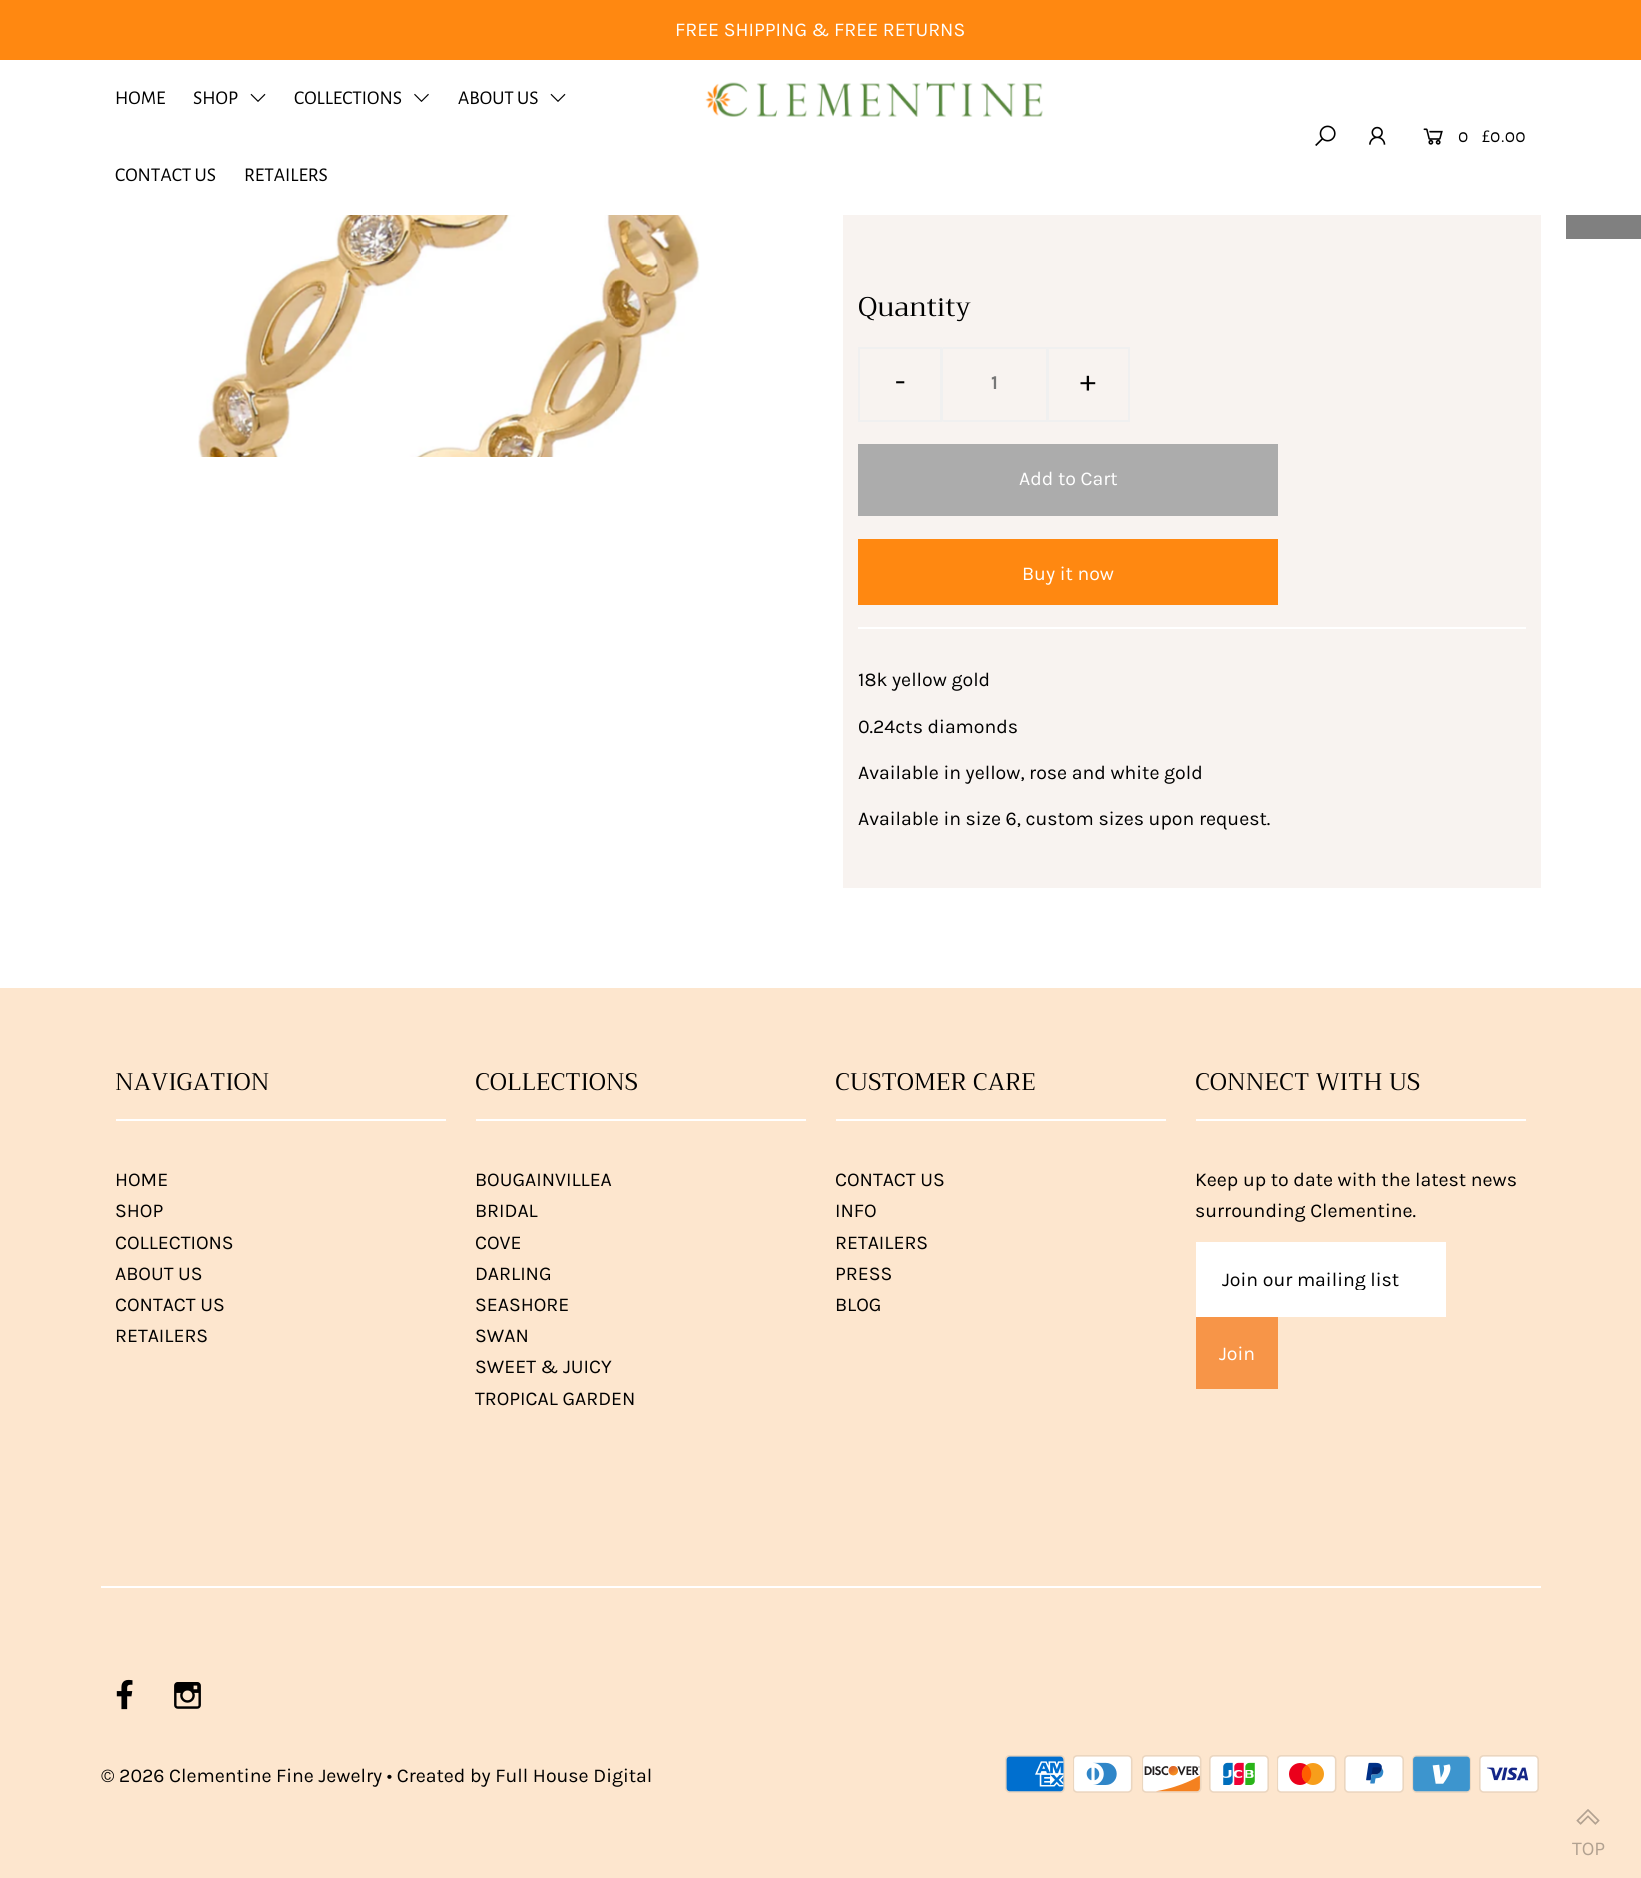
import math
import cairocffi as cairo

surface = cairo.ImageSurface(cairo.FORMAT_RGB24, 1641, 1878)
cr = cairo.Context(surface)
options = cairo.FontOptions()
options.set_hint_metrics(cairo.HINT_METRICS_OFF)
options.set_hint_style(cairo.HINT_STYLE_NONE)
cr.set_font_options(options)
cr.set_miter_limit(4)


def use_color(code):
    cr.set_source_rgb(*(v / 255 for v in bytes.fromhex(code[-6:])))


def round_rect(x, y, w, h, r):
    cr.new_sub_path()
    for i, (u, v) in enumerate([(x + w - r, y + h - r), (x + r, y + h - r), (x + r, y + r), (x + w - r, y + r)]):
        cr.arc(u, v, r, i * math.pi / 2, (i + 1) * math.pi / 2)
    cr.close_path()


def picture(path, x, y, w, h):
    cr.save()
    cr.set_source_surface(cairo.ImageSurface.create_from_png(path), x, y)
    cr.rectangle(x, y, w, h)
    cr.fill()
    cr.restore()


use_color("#ffffff")
cr.paint()
use_color("#ff8811")
cr.rectangle(0, 0, 1641, 60)
cr.fill()
cr.select_font_face("Karla")
cr.set_font_size(19.5)
use_color("#ffffff")
cr.move_to(675, 36)
cr.show_text("FREE SHIPPING & FREE RETURNS")
cr.select_font_face("Alegreya Sans")
use_color("#000000")
cr.move_to(115, 104)
cr.show_text("HOME")
cr.move_to(193, 104)
cr.show_text("SHOP")
picture("img1.png", 250, 93, 16, 9)
cr.move_to(294, 104)
cr.show_text("COLLECTIONS")
picture("img2.png", 414, 93, 15, 9)
cr.move_to(458, 104)
cr.show_text("ABOUT US")
picture("img1.png", 550, 93, 16, 9)
cr.move_to(115, 181)
cr.show_text("CONTACT US")
cr.move_to(244, 181)
cr.show_text("RETAILERS")
picture("img3.png", 705, 82, 338, 35)
picture("img4.png", 1315, 125, 21, 21)
picture("img5.png", 1369, 126, 17, 19)
picture("img6.png", 1423, 128, 20, 17)
cr.move_to(1458, 142)
cr.show_text("0")
cr.move_to(1482, 142)
cr.show_text("£0.00")
use_color("#808080")
cr.rectangle(1566, 215, 75, 24)
cr.fill()
picture("img7.png", 198, 215, 502, 242)
use_color("#f8f3f0")
cr.rectangle(843, 215, 698, 673)
cr.fill()
use_color("#ffffff")
cr.rectangle(858, 627, 668, 2)
cr.fill()
cr.select_font_face("Trirong")
cr.set_font_size(27)
use_color("#000000")
cr.move_to(858, 316)
cr.show_text("Quantity")
cr.rectangle(859, 348, 82, 73)
use_color("#f0f0f0")
cr.stroke()
cr.select_font_face("Karla")
cr.set_font_size(30)
use_color("#000000")
cr.move_to(895, 391)
cr.show_text("-")
round_rect(942, 348, 106, 73, 2)
use_color("#f0f0f0")
cr.stroke()
cr.select_font_face("Karla", cairo.FONT_SLANT_NORMAL, cairo.FONT_WEIGHT_BOLD)
cr.set_font_size(19.5)
use_color("#777777")
cr.move_to(991, 389)
cr.show_text("1")
cr.rectangle(1047, 348, 82, 73)
use_color("#f0f0f0")
cr.stroke()
cr.select_font_face("Karla")
cr.set_font_size(30)
use_color("#000000")
cr.move_to(1080, 391)
cr.show_text("+")
use_color("#acacac")
cr.rectangle(858, 444, 420, 72)
cr.fill()
cr.set_font_size(19.5)
use_color("#ffffff")
cr.move_to(1019, 485)
cr.show_text("Add to Cart")
use_color("#ff8811")
cr.rectangle(858, 539, 420, 66)
cr.fill()
use_color("#ffffff")
cr.move_to(1022, 580)
cr.show_text("Buy it now")
use_color("#000000")
cr.move_to(858, 686)
cr.show_text("18k yellow gold")
cr.move_to(858, 733)
cr.show_text("0.24cts diamonds")
cr.move_to(858, 779)
cr.show_text("Available in yellow, rose and white gold")
cr.move_to(858, 825)
cr.show_text("Available in size 6, custom sizes upon request.")
use_color("#fde6ce")
cr.rectangle(0, 988, 1641, 890)
cr.fill()
use_color("#ffffff")
cr.rectangle(116, 1119, 330, 2)
cr.fill()
cr.select_font_face("Trirong")
cr.set_font_size(24)
use_color("#000000")
cr.move_to(115, 1090)
cr.show_text("NAVIGATION")
cr.select_font_face("Karla")
cr.set_font_size(19.5)
cr.move_to(115, 1186)
cr.show_text("HOME")
cr.move_to(115, 1217)
cr.show_text("SHOP")
cr.move_to(115, 1249)
cr.show_text("COLLECTIONS")
cr.move_to(115, 1280)
cr.show_text("ABOUT US")
cr.move_to(115, 1311)
cr.show_text("CONTACT US")
cr.move_to(115, 1342)
cr.show_text("RETAILERS")
use_color("#ffffff")
cr.rectangle(476, 1119, 330, 2)
cr.fill()
cr.select_font_face("Trirong")
cr.set_font_size(24)
use_color("#000000")
cr.move_to(475, 1090)
cr.show_text("COLLECTIONS")
cr.select_font_face("Karla")
cr.set_font_size(19.5)
cr.move_to(475, 1186)
cr.show_text("BOUGAINVILLEA")
cr.move_to(475, 1217)
cr.show_text("BRIDAL")
cr.move_to(475, 1249)
cr.show_text("COVE")
cr.move_to(475, 1280)
cr.show_text("DARLING")
cr.move_to(475, 1311)
cr.show_text("SEASHORE")
cr.move_to(475, 1342)
cr.show_text("SWAN")
cr.move_to(475, 1373)
cr.show_text("SWEET & JUICY")
cr.move_to(475, 1405)
cr.show_text("TROPICAL GARDEN")
use_color("#ffffff")
cr.rectangle(836, 1119, 330, 2)
cr.fill()
cr.select_font_face("Trirong")
cr.set_font_size(24)
use_color("#000000")
cr.move_to(835, 1090)
cr.show_text("CUSTOMER CARE")
cr.select_font_face("Karla")
cr.set_font_size(19.5)
cr.move_to(835, 1186)
cr.show_text("CONTACT US")
cr.move_to(835, 1217)
cr.show_text("INFO")
cr.move_to(835, 1249)
cr.show_text("RETAILERS")
cr.move_to(835, 1280)
cr.show_text("PRESS")
cr.move_to(835, 1311)
cr.show_text("BLOG")
use_color("#ffffff")
cr.rectangle(1196, 1119, 330, 2)
cr.fill()
cr.select_font_face("Trirong")
cr.set_font_size(24)
use_color("#000000")
cr.move_to(1195, 1090)
cr.show_text("CONNECT WITH US")
cr.select_font_face("Karla")
cr.set_font_size(19.5)
cr.move_to(1195, 1186)
cr.show_text("Keep up to date with the latest news")
cr.move_to(1195, 1217)
cr.show_text("surrounding Clementine.")
use_color("#ffffff")
cr.rectangle(1196, 1242, 250, 75)
cr.fill()
cr.save()
cr.rectangle(1197, 1268, 248, 22)
cr.clip()
use_color("#000000")
cr.move_to(1222, 1286)
cr.show_text("Join our mailing list")
cr.restore()
use_color("#f79548")
cr.rectangle(1196, 1317, 82, 72)
cr.fill()
use_color("#ffffff")
cr.move_to(1219, 1360)
cr.show_text("Join")
cr.rectangle(101, 1586, 1440, 2)
cr.fill()
picture("img8.png", 116, 1679, 17, 31)
picture("img9.png", 174, 1682, 27, 27)
use_color("#000000")
cr.move_to(101, 1782)
cr.show_text("© 2026 Clementine Fine Jewelry • Created by Full House Digital")
picture("img10.png", 1005, 1755, 60, 38)
picture("img11.png", 1073, 1755, 60, 38)
picture("img12.png", 1142, 1755, 60, 38)
picture("img13.png", 1209, 1755, 60, 38)
picture("img14.png", 1277, 1755, 60, 38)
picture("img15.png", 1344, 1755, 60, 38)
picture("img16.png", 1412, 1755, 59, 38)
picture("img17.png", 1479, 1755, 60, 38)
picture("img18.png", 1576, 1809, 24, 16)
use_color("#b1a190")
cr.move_to(1572, 1855)
cr.show_text("TOP")
surface.write_to_png("result.png")
